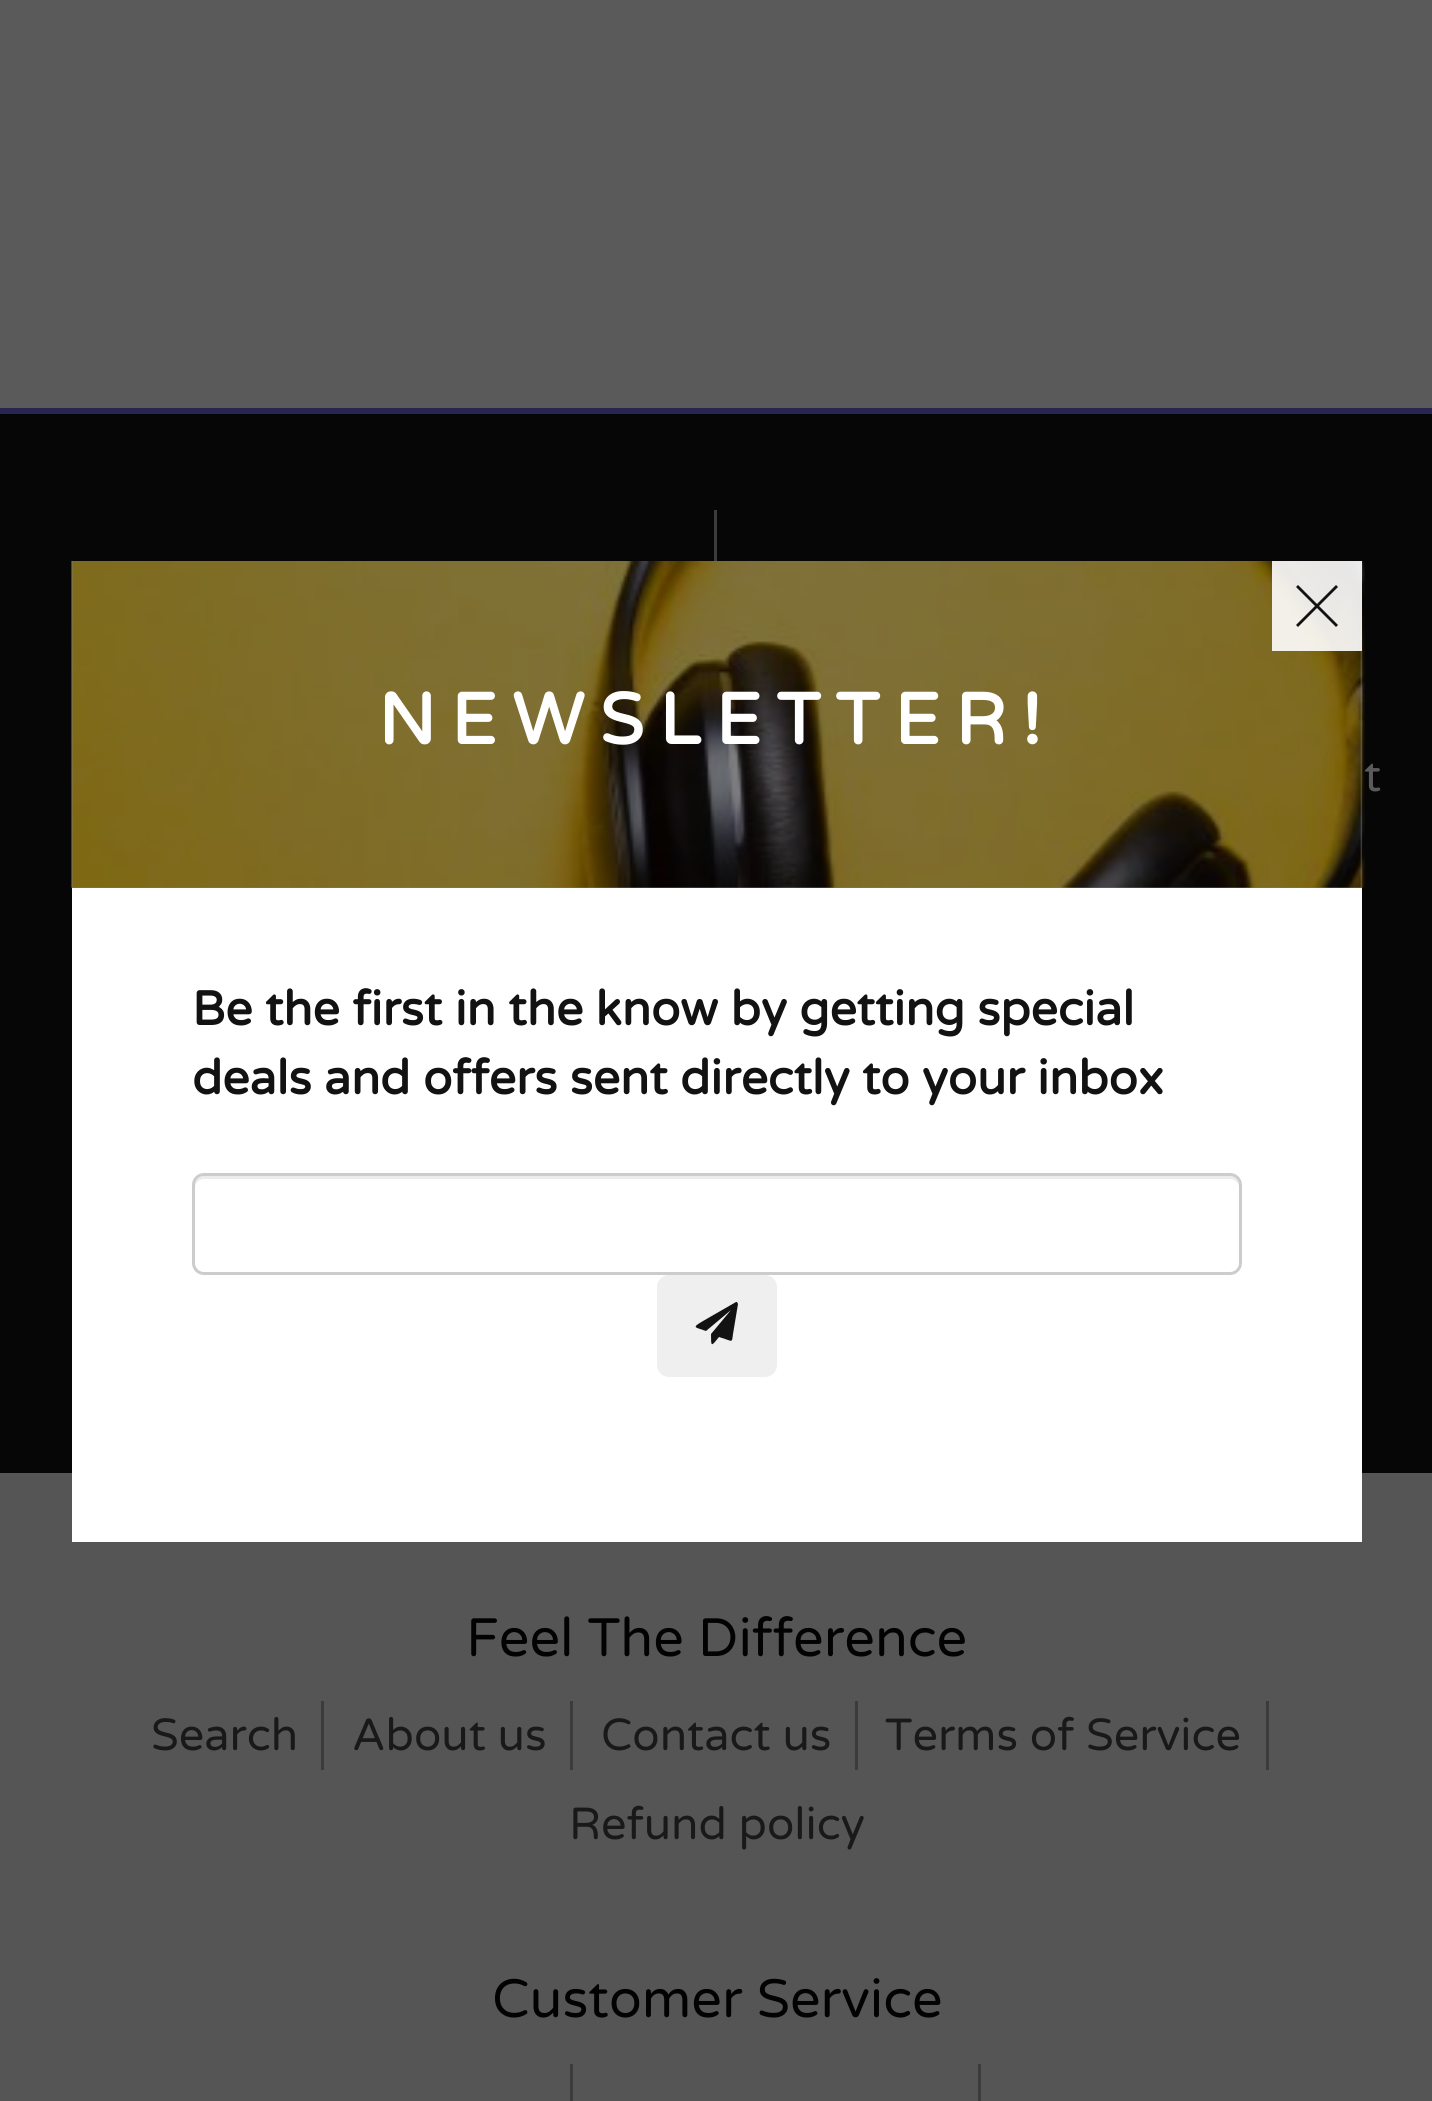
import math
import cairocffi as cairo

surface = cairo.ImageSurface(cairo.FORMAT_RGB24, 1432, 2101)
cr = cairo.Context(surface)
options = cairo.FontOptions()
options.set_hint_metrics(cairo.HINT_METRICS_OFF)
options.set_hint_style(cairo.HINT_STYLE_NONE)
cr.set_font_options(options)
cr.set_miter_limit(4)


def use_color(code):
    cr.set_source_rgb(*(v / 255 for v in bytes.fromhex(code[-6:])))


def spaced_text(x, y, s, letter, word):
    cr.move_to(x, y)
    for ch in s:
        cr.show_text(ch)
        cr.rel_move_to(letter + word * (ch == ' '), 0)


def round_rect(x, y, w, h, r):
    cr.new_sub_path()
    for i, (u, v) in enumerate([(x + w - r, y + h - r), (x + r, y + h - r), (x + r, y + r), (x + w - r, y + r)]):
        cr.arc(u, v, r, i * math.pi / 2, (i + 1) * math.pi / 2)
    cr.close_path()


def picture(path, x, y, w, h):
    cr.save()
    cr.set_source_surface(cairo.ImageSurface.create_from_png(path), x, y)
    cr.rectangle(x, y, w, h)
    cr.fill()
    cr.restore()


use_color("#5a5a5a")
cr.paint()
use_color("#060606")
cr.rectangle(0, 414, 1432, 1059)
cr.fill()
use_color("#555555")
cr.rectangle(0, 1473, 1432, 628)
cr.fill()
use_color("#ffffff")
cr.rectangle(72, 561, 1290, 981)
cr.fill()
picture("img1.png", 71, 561, 1294, 327)
cr.set_source_rgba(0, 0, 0, 0.5)
cr.rectangle(72, 561, 1290, 327)
cr.fill()
cr.set_source_rgba(1, 1, 1, 0.9)
cr.rectangle(1272, 561, 90, 90)
cr.fill()
use_color("#121212")
cr.new_path()
cr.move_to(1319, 606)
cr.line_to(1338, 625)
cr.line_to(1336, 627)
cr.line_to(1317, 608)
cr.line_to(1298, 627)
cr.line_to(1296, 625)
cr.line_to(1315, 606)
cr.line_to(1296, 587)
cr.line_to(1298, 585)
cr.line_to(1317, 604)
cr.line_to(1336, 585)
cr.line_to(1338, 587)
cr.close_path()
cr.fill()
cr.select_font_face("Varela Round", cairo.FONT_SLANT_NORMAL, cairo.FONT_WEIGHT_BOLD)
cr.set_font_size(72)
use_color("#ffffff")
spaced_text(378, 744, "NEWSLETTER!", 15, 0)
cr.set_font_size(48)
use_color("#121212")
cr.move_to(192, 1025)
cr.show_text("Be the first in the know by getting special")
cr.move_to(192, 1094)
cr.show_text("deals and offers sent directly to your inbox")
use_color("#ececec")
cr.new_path()
cr.move_to(204, 1179)
cr.line_to(1230, 1179)
cr.curve_to(1235, 1179, 1239, 1183, 1239, 1188)
cr.line_to(1239, 1185)
cr.curve_to(1239, 1180, 1235, 1176, 1230, 1176)
cr.line_to(204, 1176)
cr.curve_to(199, 1176, 195, 1180, 195, 1185)
cr.line_to(195, 1188)
cr.curve_to(195, 1183, 199, 1179, 204, 1179)
cr.close_path()
cr.fill()
round_rect(193.5, 1174.5, 1047, 99, 10.5)
use_color("#cccccc")
cr.set_line_width(3)
cr.stroke()
use_color("#efefef")
round_rect(657, 1275, 120, 102, 12)
cr.fill()
use_color("#121212")
cr.new_path()
cr.move_to(737, 1302)
cr.line_to(738, 1304)
cr.line_to(733, 1334)
cr.curve_to(732, 1340, 733, 1342, 728, 1340)
cr.line_to(719, 1337)
cr.curve_to(711, 1347, 711, 1347, 711, 1334)
cr.line_to(731, 1310)
cr.line_to(706, 1331)
cr.curve_to(695, 1327, 691, 1328, 703, 1321)
cr.line_to(736, 1302)
cr.close_path()
cr.fill()
use_color("#282650")
cr.rectangle(0, 408, 1432, 6)
cr.fill()
use_color("#3b3b3b")
cr.rectangle(714, 510, 3, 51)
cr.fill()
cr.select_font_face("Varela Round")
cr.set_font_size(45)
use_color("#5a5a5a")
cr.move_to(1364, 791)
cr.show_text("t")
cr.set_font_size(54)
use_color("#020202")
cr.move_to(466, 1656)
cr.show_text("Feel The Difference")
use_color("#3b3b3b")
cr.rectangle(321, 1701, 3, 69)
cr.fill()
cr.set_font_size(45)
use_color("#191919")
cr.move_to(151, 1750)
cr.show_text("Search")
use_color("#3b3b3b")
cr.rectangle(570, 1701, 3, 69)
cr.fill()
use_color("#191919")
cr.move_to(352, 1750)
cr.show_text("About us")
use_color("#3b3b3b")
cr.rectangle(855, 1701, 3, 69)
cr.fill()
use_color("#191919")
cr.move_to(601, 1750)
cr.show_text("Contact us")
use_color("#3b3b3b")
cr.rectangle(1266, 1701, 3, 69)
cr.fill()
use_color("#191919")
cr.move_to(885, 1750)
cr.show_text("Terms of Service")
cr.move_to(569, 1839)
cr.show_text("Refund policy")
cr.set_font_size(54)
use_color("#020202")
cr.move_to(492, 2017)
cr.show_text("Customer Service")
use_color("#3b3b3b")
cr.rectangle(570, 2064, 3, 37)
cr.fill()
cr.rectangle(978, 2064, 3, 37)
cr.fill()
surface.write_to_png("result.png")
